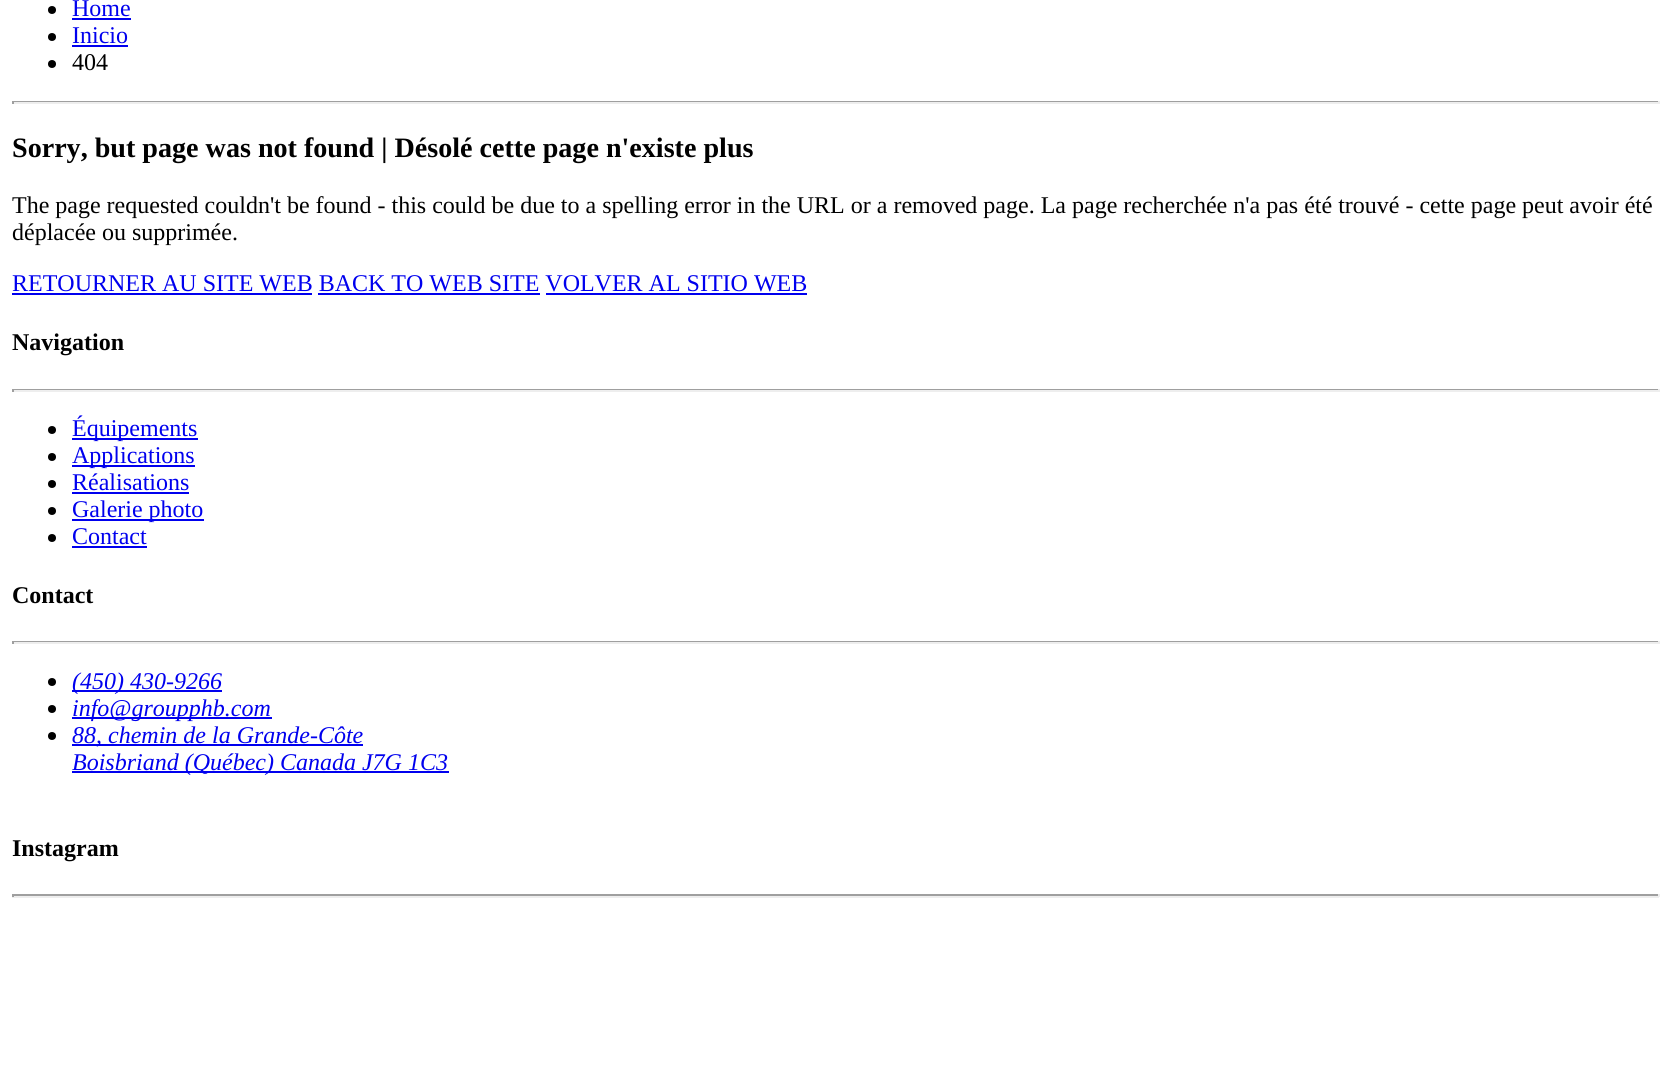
import math
import cairocffi as cairo

surface = cairo.ImageSurface(cairo.FORMAT_RGB24, 1671, 1076)
cr = cairo.Context(surface)
options = cairo.FontOptions()
options.set_hint_metrics(cairo.HINT_METRICS_OFF)
options.set_hint_style(cairo.HINT_STYLE_NONE)
cr.set_font_options(options)
cr.set_miter_limit(4)


def use_color(code):
    cr.set_source_rgb(*(v / 255 for v in bytes.fromhex(code[-6:])))


use_color("#ffffff")
cr.paint()
use_color("#000000")
cr.arc(52, 10, 4, 0, 2 * math.pi)
cr.fill()
cr.select_font_face("Liberation Serif")
cr.set_font_size(24)
use_color("#0000ee")
cr.move_to(72, 16)
cr.show_text("Home")
cr.rectangle(72, 18, 59, 2)
cr.fill()
use_color("#000000")
cr.arc(52, 37, 4, 0, 2 * math.pi)
cr.fill()
use_color("#0000ee")
cr.move_to(72, 43)
cr.show_text("Inicio")
cr.rectangle(72, 45, 56, 2)
cr.fill()
use_color("#000000")
cr.arc(52, 64, 4, 0, 2 * math.pi)
cr.fill()
cr.move_to(72, 70)
cr.show_text("404")
use_color("#9f9f9f")
cr.rectangle(12, 101, 1647, 1)
cr.fill()
use_color("#eeeeee")
cr.rectangle(1658, 101, 2, 3)
cr.fill()
cr.rectangle(12, 102, 1647, 2)
cr.fill()
use_color("#9f9f9f")
cr.rectangle(12, 101, 2, 3)
cr.fill()
cr.select_font_face("Liberation Serif", cairo.FONT_SLANT_NORMAL, cairo.FONT_WEIGHT_BOLD)
cr.set_font_size(28.1)
use_color("#000000")
cr.move_to(12, 157)
cr.show_text("Sorry, but page was not found | Désolé cette page n'existe plus")
cr.select_font_face("Liberation Serif")
cr.set_font_size(24)
cr.move_to(12, 213)
cr.show_text("The page requested couldn't be found - this could be due to a spelling error in the URL or a removed page. La page recherchée n'a pas été trouvé - cette page peut avoir été")
cr.move_to(12, 240)
cr.show_text("déplacée ou supprimée.")
use_color("#0000ee")
cr.move_to(12, 291)
cr.show_text("RETOURNER AU SITE WEB BACK TO WEB SITE VOLVER AL SITIO WEB")
cr.rectangle(12, 293, 300, 2)
cr.fill()
cr.rectangle(318, 293, 222, 2)
cr.fill()
cr.rectangle(546, 293, 261, 2)
cr.fill()
cr.select_font_face("Liberation Serif", cairo.FONT_SLANT_NORMAL, cairo.FONT_WEIGHT_BOLD)
use_color("#000000")
cr.move_to(12, 350)
cr.show_text("Navigation")
use_color("#9f9f9f")
cr.rectangle(12, 389, 1647, 1)
cr.fill()
use_color("#eeeeee")
cr.rectangle(1658, 389, 2, 3)
cr.fill()
cr.rectangle(12, 390, 1647, 2)
cr.fill()
use_color("#9f9f9f")
cr.rectangle(12, 389, 2, 3)
cr.fill()
use_color("#000000")
cr.arc(52, 430, 4, 0, 2 * math.pi)
cr.fill()
use_color("#0000ee")
cr.rectangle(72, 438, 126, 2)
cr.fill()
cr.select_font_face("Liberation Serif")
cr.move_to(72, 436)
cr.show_text("Équipements")
use_color("#000000")
cr.new_path()
cr.arc(52, 457, 4, 0, 2 * math.pi)
cr.fill()
use_color("#0000ee")
cr.rectangle(72, 465, 123, 2)
cr.fill()
cr.move_to(72, 463)
cr.show_text("Applications")
use_color("#000000")
cr.new_path()
cr.arc(52, 484, 4, 0, 2 * math.pi)
cr.fill()
use_color("#0000ee")
cr.move_to(72, 490)
cr.show_text("Réalisations")
cr.rectangle(72, 492, 117, 2)
cr.fill()
use_color("#000000")
cr.arc(52, 511, 4, 0, 2 * math.pi)
cr.fill()
use_color("#0000ee")
cr.rectangle(72, 519, 132, 2)
cr.fill()
cr.move_to(72, 517)
cr.show_text("Galerie photo")
use_color("#000000")
cr.new_path()
cr.arc(52, 538, 4, 0, 2 * math.pi)
cr.fill()
use_color("#0000ee")
cr.move_to(72, 544)
cr.show_text("Contact")
cr.rectangle(72, 546, 75, 2)
cr.fill()
cr.select_font_face("Liberation Serif", cairo.FONT_SLANT_NORMAL, cairo.FONT_WEIGHT_BOLD)
use_color("#000000")
cr.move_to(12, 603)
cr.show_text("Contact")
use_color("#9f9f9f")
cr.rectangle(12, 641, 1647, 1)
cr.fill()
use_color("#eeeeee")
cr.rectangle(1658, 641, 2, 3)
cr.fill()
cr.rectangle(12, 642, 1647, 2)
cr.fill()
use_color("#9f9f9f")
cr.rectangle(12, 641, 2, 3)
cr.fill()
use_color("#000000")
cr.arc(52, 682, 4, 0, 2 * math.pi)
cr.fill()
use_color("#0000ee")
cr.rectangle(72, 690, 150, 2)
cr.fill()
cr.select_font_face("Liberation Serif", cairo.FONT_SLANT_ITALIC)
cr.move_to(72, 689)
cr.show_text("(450) 430-9266")
use_color("#000000")
cr.new_path()
cr.arc(52, 709, 4, 0, 2 * math.pi)
cr.fill()
use_color("#0000ee")
cr.rectangle(72, 717, 200, 2)
cr.fill()
cr.move_to(72, 716)
cr.show_text("info@groupphb.com")
use_color("#000000")
cr.new_path()
cr.arc(52, 736, 4, 0, 2 * math.pi)
cr.fill()
use_color("#0000ee")
cr.rectangle(72, 744, 291, 2)
cr.fill()
cr.move_to(72, 743)
cr.show_text("88, chemin de la Grande-Côte")
cr.rectangle(72, 771, 377, 2)
cr.fill()
cr.move_to(72, 770)
cr.show_text("Boisbriand (Québec) Canada J7G 1C3")
cr.select_font_face("Liberation Serif", cairo.FONT_SLANT_NORMAL, cairo.FONT_WEIGHT_BOLD)
use_color("#000000")
cr.move_to(12, 856)
cr.show_text("Instagram")
use_color("#9f9f9f")
cr.rectangle(12, 894, 1647, 2)
cr.fill()
use_color("#eeeeee")
cr.rectangle(1658, 894, 2, 3)
cr.fill()
cr.rectangle(12, 896, 1647, 2)
cr.fill()
use_color("#9f9f9f")
cr.rectangle(12, 894, 2, 3)
cr.fill()
surface.write_to_png("result.png")
